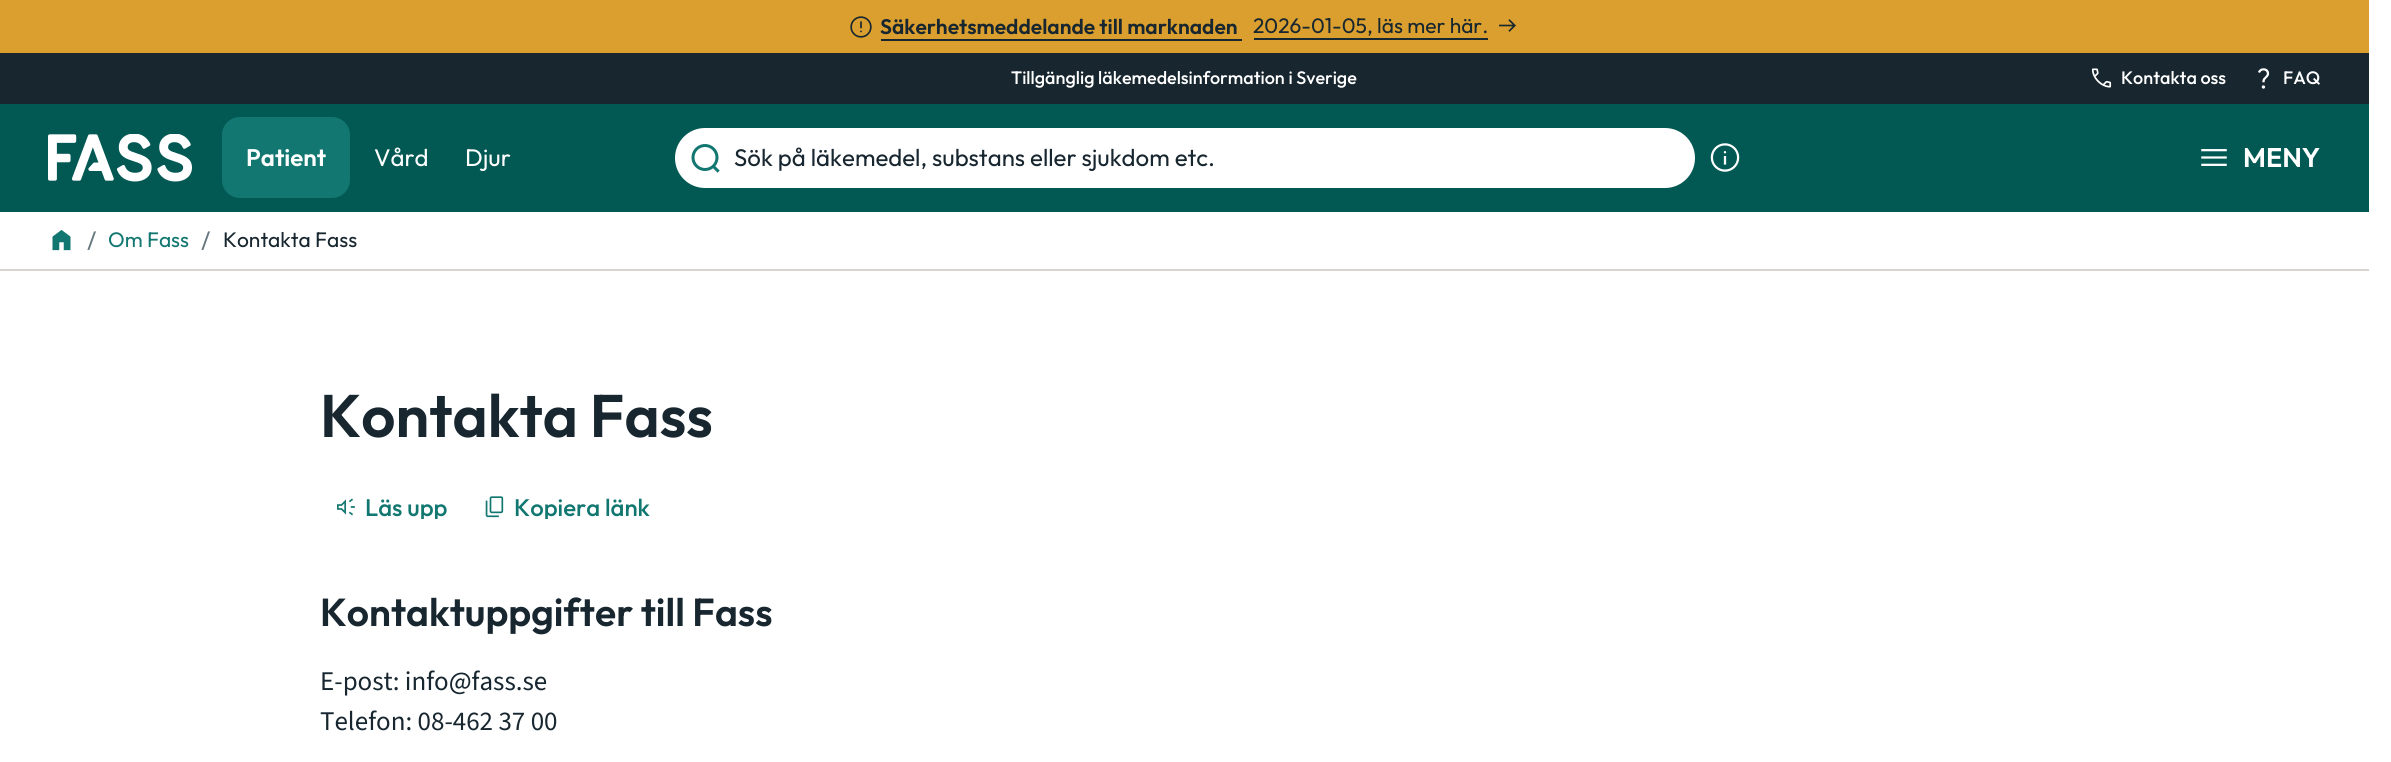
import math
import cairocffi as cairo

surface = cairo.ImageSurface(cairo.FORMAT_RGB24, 2391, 762)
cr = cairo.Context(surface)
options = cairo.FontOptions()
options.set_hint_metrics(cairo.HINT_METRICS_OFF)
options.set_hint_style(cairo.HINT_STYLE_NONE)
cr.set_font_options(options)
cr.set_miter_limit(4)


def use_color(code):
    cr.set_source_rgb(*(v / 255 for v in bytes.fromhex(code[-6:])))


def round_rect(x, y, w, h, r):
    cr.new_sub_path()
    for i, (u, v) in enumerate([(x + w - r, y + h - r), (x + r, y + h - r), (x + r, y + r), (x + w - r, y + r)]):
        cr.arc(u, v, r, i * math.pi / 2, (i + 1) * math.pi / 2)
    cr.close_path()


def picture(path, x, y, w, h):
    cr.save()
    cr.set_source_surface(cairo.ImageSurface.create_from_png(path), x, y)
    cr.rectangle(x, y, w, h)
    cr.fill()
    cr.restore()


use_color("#ffffff")
cr.paint()
use_color("#025954")
cr.rectangle(0, 104, 2369, 108)
cr.fill()
use_color("#da9f2e")
cr.rectangle(0, 0, 2369, 53)
cr.fill()
picture("img1.png", 850, 16, 22, 22)
cr.select_font_face("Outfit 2 Thin")
cr.set_font_size(21)
use_color("#17262f")
cr.move_to(880, 34)
cr.show_text("Säkerhetsmeddelande till marknaden")
cr.rectangle(881, 39, 361, 2)
cr.fill()
cr.select_font_face("Outfit Thin")
cr.move_to(1253, 33)
cr.show_text("2026-01-05, läs mer här.")
cr.rectangle(1254, 38, 234, 2)
cr.fill()
picture("img2.png", 1499, 19, 17, 13)
cr.rectangle(0, 53, 2369, 51)
cr.fill()
cr.select_font_face("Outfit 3 Thin")
cr.set_font_size(18)
use_color("#ffffff")
cr.move_to(1011, 84)
cr.show_text("Tillgänglig läkemedelsinformation i Sverige")
picture("img3.png", 2091, 68, 21, 20)
cr.move_to(2121, 84)
cr.show_text("Kontakta oss")
picture("img4.png", 2258, 68, 12, 21)
cr.move_to(2283, 84)
cr.show_text("FAQ")
picture("img5.png", 48, 134, 144, 48)
use_color("#127771")
round_rect(222, 117, 128, 81, 18)
cr.fill()
cr.select_font_face("Outfit 2 Thin")
cr.set_font_size(24)
use_color("#ffffff")
cr.move_to(246, 166)
cr.show_text("Patient")
cr.select_font_face("Outfit Thin")
cr.move_to(374, 166)
cr.show_text("Vård")
cr.move_to(465, 166)
cr.show_text("Djur")
round_rect(675, 128, 1020, 60, 30)
cr.fill()
picture("img6.png", 691, 144, 29, 29)
use_color("#17262f")
cr.move_to(734, 166)
cr.show_text("Sök på läkemedel, substans eller sjukdom etc.")
picture("img7.png", 1710, 143, 30, 29)
picture("img8.png", 2201, 149, 26, 17)
cr.select_font_face("Outfit 2 Thin")
cr.set_font_size(27)
use_color("#ffffff")
cr.move_to(2243, 167)
cr.show_text("MENY")
use_color("#d8d5d0")
cr.rectangle(0, 269, 2369, 2)
cr.fill()
picture("img9.png", 52, 230, 19, 21)
cr.select_font_face("Outfit Thin")
cr.set_font_size(24)
use_color("#687880")
cr.move_to(87, 249)
cr.show_text("/")
cr.set_font_size(21)
use_color("#127771")
cr.move_to(108, 247)
cr.show_text("Om Fass")
cr.set_font_size(24)
use_color("#687880")
cr.move_to(201, 249)
cr.show_text("/")
cr.set_font_size(21)
use_color("#17262f")
cr.move_to(223, 247)
cr.show_text("Kontakta Fass")
cr.select_font_face("Outfit 2 Thin")
cr.set_font_size(60)
cr.move_to(320, 437)
cr.show_text("Kontakta Fass")
picture("img10.png", 337, 498, 18, 18)
cr.save()
cr.rectangle(366, 495, 83, 24)
cr.clip()
cr.select_font_face("Outfit 3 Thin")
cr.set_font_size(24)
use_color("#127771")
cr.move_to(365, 516)
cr.show_text("Läs upp")
cr.restore()
picture("img11.png", 485, 496, 19, 22)
cr.save()
cr.rectangle(515, 495, 135, 24)
cr.clip()
cr.select_font_face("Outfit 3 Thin")
cr.set_font_size(24)
use_color("#127771")
cr.move_to(514, 516)
cr.show_text("Kopiera länk")
cr.restore()
cr.set_font_size(39)
cr.move_to(320, 626)
cr.show_text("Kontaktuppgifter till Fass")
cr.select_font_face("Source Sans 3 ExtraLight")
cr.set_font_size(27)
cr.move_to(320, 690)
cr.show_text("E-post: info@fass.se")
cr.move_to(320, 730)
cr.show_text("Telefon: 08-462 37 00")
surface.write_to_png("result.png")
